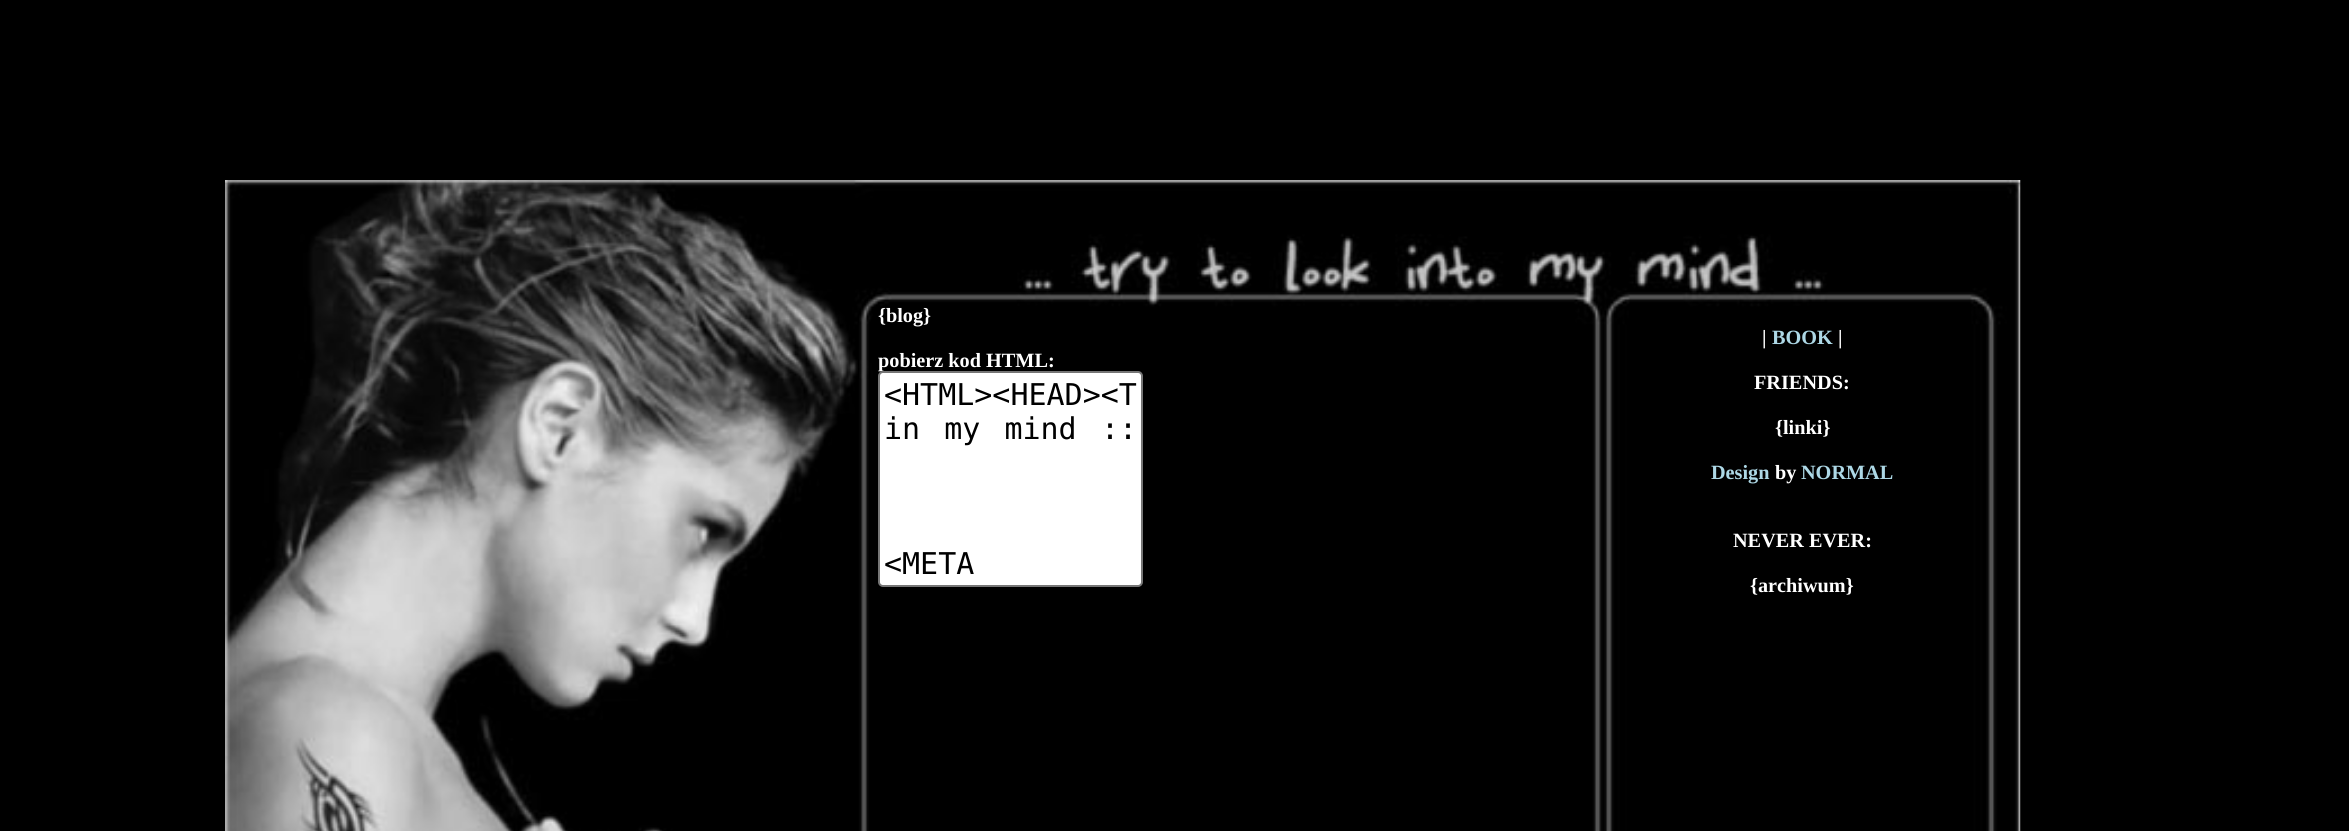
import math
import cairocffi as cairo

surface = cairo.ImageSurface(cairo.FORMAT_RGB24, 2349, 831)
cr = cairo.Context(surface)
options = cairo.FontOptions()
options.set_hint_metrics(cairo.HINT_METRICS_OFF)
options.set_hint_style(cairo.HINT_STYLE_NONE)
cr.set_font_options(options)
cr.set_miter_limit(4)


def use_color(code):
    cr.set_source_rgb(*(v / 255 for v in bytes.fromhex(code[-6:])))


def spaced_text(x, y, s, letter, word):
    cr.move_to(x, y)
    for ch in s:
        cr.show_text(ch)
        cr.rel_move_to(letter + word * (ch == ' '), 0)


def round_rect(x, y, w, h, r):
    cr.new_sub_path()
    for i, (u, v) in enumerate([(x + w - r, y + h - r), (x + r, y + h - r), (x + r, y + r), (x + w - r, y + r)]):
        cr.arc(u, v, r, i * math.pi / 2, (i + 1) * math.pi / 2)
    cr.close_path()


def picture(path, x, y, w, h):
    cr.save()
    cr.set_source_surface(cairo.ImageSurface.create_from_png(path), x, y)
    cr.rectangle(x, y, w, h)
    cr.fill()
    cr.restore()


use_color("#000000")
cr.paint()
picture("img1.png", 225, 180, 1796, 651)
cr.select_font_face("Liberation Serif", cairo.FONT_SLANT_NORMAL, cairo.FONT_WEIGHT_BOLD)
cr.set_font_size(20.25)
use_color("#ffffff")
cr.move_to(878, 322)
cr.show_text("{blog}")
cr.save()
cr.rectangle(878, 304, 711, 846)
cr.clip()
cr.move_to(878, 367)
cr.show_text("pobierz kod HTML:")
cr.restore()
round_rect(879, 372, 263, 214, 4)
cr.fill_preserve()
use_color("#767676")
cr.stroke()
cr.select_font_face("DejaVu Sans Mono")
cr.set_font_size(30)
use_color("#000000")
cr.move_to(884, 405)
cr.show_text("<HTML><HEAD><T")
spaced_text(884, 439, "in my mind", 0, 6)
cr.move_to(1101, 439)
cr.show_text("::")
cr.move_to(884, 574)
cr.show_text("<META")
cr.select_font_face("Liberation Serif", cairo.FONT_SLANT_NORMAL, cairo.FONT_WEIGHT_BOLD)
cr.set_font_size(20.25)
use_color("#ffffff")
cr.move_to(1762, 344)
cr.show_text("|")
use_color("#add8e6")
cr.move_to(1772, 344)
cr.show_text("BOOK")
use_color("#ffffff")
cr.move_to(1838, 344)
cr.show_text("|")
cr.move_to(1754, 389)
cr.show_text("FRIENDS:")
cr.move_to(1775, 434)
cr.show_text("{linki}")
use_color("#add8e6")
cr.move_to(1711, 479)
cr.show_text("Design")
use_color("#ffffff")
cr.move_to(1775, 479)
cr.show_text("by")
use_color("#add8e6")
cr.move_to(1801, 479)
cr.show_text("NORMAL")
use_color("#ffffff")
cr.move_to(1733, 547)
cr.show_text("NEVER EVER:")
cr.move_to(1750, 592)
cr.show_text("{archiwum}")
surface.write_to_png("result.png")
